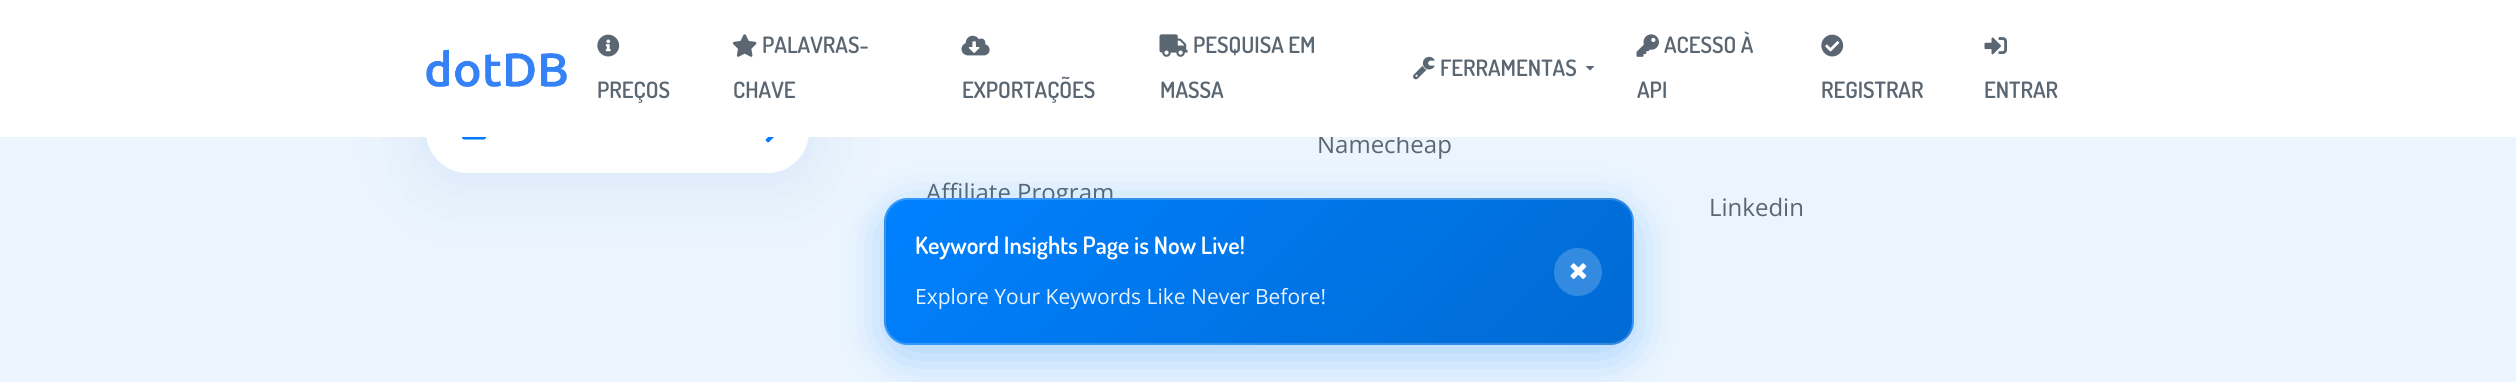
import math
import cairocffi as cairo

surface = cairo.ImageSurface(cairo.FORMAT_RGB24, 2516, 382)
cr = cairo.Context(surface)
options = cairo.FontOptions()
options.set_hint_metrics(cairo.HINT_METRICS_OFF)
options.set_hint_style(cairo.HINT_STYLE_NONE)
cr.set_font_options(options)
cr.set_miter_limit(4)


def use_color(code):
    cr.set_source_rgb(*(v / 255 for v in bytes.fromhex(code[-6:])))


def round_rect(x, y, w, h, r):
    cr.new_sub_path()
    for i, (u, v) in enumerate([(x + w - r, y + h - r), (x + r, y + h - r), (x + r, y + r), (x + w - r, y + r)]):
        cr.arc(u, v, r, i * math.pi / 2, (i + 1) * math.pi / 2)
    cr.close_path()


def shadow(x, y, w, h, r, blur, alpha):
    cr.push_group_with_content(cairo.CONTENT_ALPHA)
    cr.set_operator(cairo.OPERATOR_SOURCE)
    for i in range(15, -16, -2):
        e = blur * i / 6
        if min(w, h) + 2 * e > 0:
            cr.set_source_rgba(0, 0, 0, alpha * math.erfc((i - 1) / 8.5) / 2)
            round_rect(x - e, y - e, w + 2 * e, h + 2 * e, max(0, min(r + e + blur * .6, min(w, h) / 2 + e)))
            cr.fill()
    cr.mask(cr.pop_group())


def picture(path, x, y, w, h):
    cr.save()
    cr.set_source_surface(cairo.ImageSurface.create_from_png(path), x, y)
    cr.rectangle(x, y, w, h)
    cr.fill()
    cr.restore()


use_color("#ecf5fe")
cr.paint()
use_color("#0051b2")
shadow(426, 96, 383, 84, 42, 37.5, 0.1)
use_color("#ffffff")
round_rect(426, 89, 383, 84, 42)
cr.fill()
cr.new_path()
cr.move_to(468, 89)
cr.line_to(486, 89)
cr.line_to(486, 173)
cr.line_to(468, 173)
cr.curve_to(445, 173, 426, 154, 426, 131)
cr.curve_to(426, 108, 445, 89, 468, 89)
cr.close_path()
cr.fill()
cr.new_path()
cr.move_to(734, 89)
cr.line_to(767, 89)
cr.curve_to(790, 89, 809, 108, 809, 131)
cr.curve_to(809, 154, 790, 173, 767, 173)
cr.line_to(734, 173)
cr.curve_to(730.5, 173, 728, 170.5, 728, 167)
cr.line_to(728, 95)
cr.curve_to(728, 91.5, 730.5, 89, 734, 89)
cr.close_path()
cr.fill()
cr.select_font_face("Open Sans")
cr.set_font_size(24)
use_color("#5a6671")
cr.move_to(1317, 153)
cr.show_text("Namecheap")
use_color("#ffffff")
cr.rectangle(0, 0, 2516, 137)
cr.fill()
picture("img1.png", 426, 49, 141, 38)
picture("img2.png", 732, 34, 25, 23)
cr.select_font_face("Dosis SemiBold")
cr.set_font_size(22.5)
use_color("#5a6671")
cr.move_to(762, 53)
cr.show_text("PALAVRAS-")
cr.move_to(733, 98)
cr.show_text("CHAVE")
picture("img3.png", 1159, 34, 29, 23)
cr.move_to(1193, 53)
cr.show_text("PESQUISA EM")
cr.move_to(1160, 98)
cr.show_text("MASSA")
picture("img4.png", 1413, 56, 22, 24)
cr.move_to(1440, 76)
cr.show_text("FERRAMENTAS")
cr.new_path()
cr.move_to(1585.5, 66)
cr.line_to(1594.5, 66)
cr.line_to(1590, 70.5)
cr.close_path()
cr.fill()
picture("img5.png", 1636, 34, 23, 23)
cr.move_to(1664, 53)
cr.show_text("ACESSO À")
cr.move_to(1637, 98)
cr.show_text("API")
picture("img6.png", 597, 34, 23, 23)
cr.move_to(597, 98)
cr.show_text("PREÇOS")
picture("img7.png", 961, 35, 29, 21)
cr.move_to(962, 98)
cr.show_text("EXPORTAÇÕES")
picture("img8.png", 1821, 34, 23, 23)
cr.move_to(1821, 98)
cr.show_text("REGISTRAR")
picture("img9.png", 1984, 37, 23, 18)
cr.move_to(1984, 98)
cr.show_text("ENTRAR")
picture("img10.png", 462, 137, 24, 3)
picture("img11.png", 765, 137, 9, 6)
cr.select_font_face("Open Sans")
cr.set_font_size(24)
cr.move_to(926, 201)
cr.show_text("Affiliate Program")
cr.move_to(1709, 216)
cr.show_text("Linkedin")
use_color("#0081ff")
shadow(884, 210, 750, 147, 24, 24, 0.3)
cr.save()
round_rect(884, 198, 750, 147, 24)
cr.clip()
gradient = cairo.LinearGradient(1036, -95, 1481, 350)
gradient.add_color_stop_rgba(0, 0, 0.506, 1, 1)
gradient.add_color_stop_rgba(1, 0, 0.416, 0.827, 1)
cr.set_source(gradient)
cr.rectangle(898, 198, 722, 2)
cr.fill()
gradient = cairo.LinearGradient(289, 49, 734, 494)
gradient.add_color_stop_rgba(0, 0, 0.506, 1, 1)
gradient.add_color_stop_rgba(1, 0, 0.416, 0.827, 1)
cr.set_source(gradient)
cr.rectangle(884, 215, 1, 113)
cr.fill()
gradient = cairo.LinearGradient(1036, 49, 1481, 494)
gradient.add_color_stop_rgba(0, 0, 0.506, 1, 1)
gradient.add_color_stop_rgba(1, 0, 0.416, 0.827, 1)
cr.set_source(gradient)
cr.rectangle(885, 200, 747, 144)
cr.fill()
gradient = cairo.LinearGradient(1783, 49, 2228, 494)
gradient.add_color_stop_rgba(0, 0, 0.506, 1, 1)
gradient.add_color_stop_rgba(1, 0, 0.416, 0.827, 1)
cr.set_source(gradient)
cr.rectangle(1632, 212, 2, 119)
cr.fill()
gradient = cairo.LinearGradient(1036, 193, 1481, 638)
gradient.add_color_stop_rgba(0, 0, 0.506, 1, 1)
gradient.add_color_stop_rgba(1, 0, 0.416, 0.827, 1)
cr.set_source(gradient)
cr.rectangle(901, 344, 716, 1)
cr.fill()
cr.restore()
round_rect(885, 199, 748, 145, 23)
cr.set_source_rgba(1, 1, 1, 0.2)
cr.stroke()
cr.select_font_face("Dosis SemiBold")
use_color("#ffffff")
cr.move_to(915, 254)
cr.show_text("Keyword Insights Page is Now Live!")
cr.select_font_face("Open Sans")
cr.set_font_size(21)
use_color("#e6f2fd")
cr.move_to(915, 304)
cr.show_text("Explore Your Keywords Like Never Before!")
cr.set_source_rgba(1, 1, 1, 0.2)
cr.new_path()
cr.arc(1578, 272, 24, 0, 2 * math.pi)
cr.fill()
picture("img12.png", 1570, 263, 17, 16)
surface.write_to_png("result.png")
